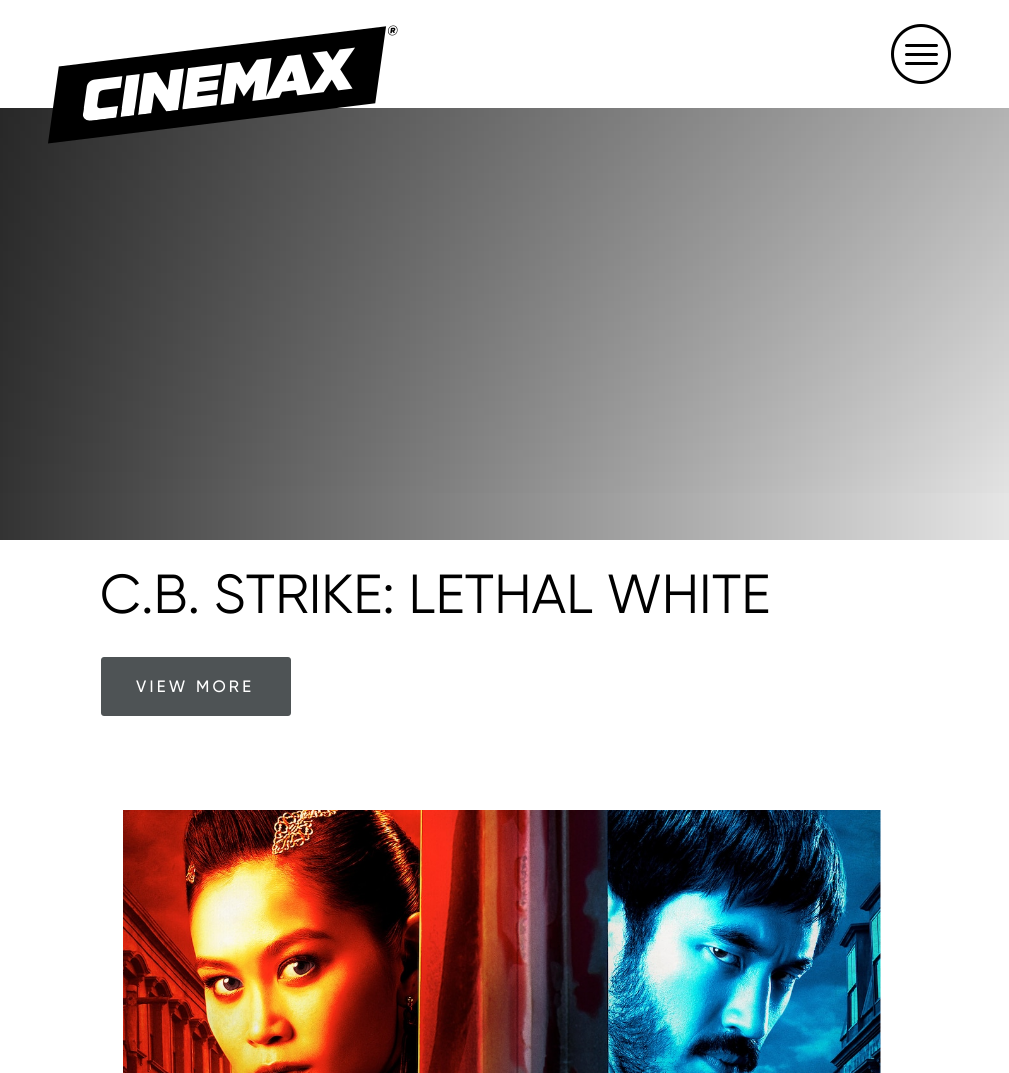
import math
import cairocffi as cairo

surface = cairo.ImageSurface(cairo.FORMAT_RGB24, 1009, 1073)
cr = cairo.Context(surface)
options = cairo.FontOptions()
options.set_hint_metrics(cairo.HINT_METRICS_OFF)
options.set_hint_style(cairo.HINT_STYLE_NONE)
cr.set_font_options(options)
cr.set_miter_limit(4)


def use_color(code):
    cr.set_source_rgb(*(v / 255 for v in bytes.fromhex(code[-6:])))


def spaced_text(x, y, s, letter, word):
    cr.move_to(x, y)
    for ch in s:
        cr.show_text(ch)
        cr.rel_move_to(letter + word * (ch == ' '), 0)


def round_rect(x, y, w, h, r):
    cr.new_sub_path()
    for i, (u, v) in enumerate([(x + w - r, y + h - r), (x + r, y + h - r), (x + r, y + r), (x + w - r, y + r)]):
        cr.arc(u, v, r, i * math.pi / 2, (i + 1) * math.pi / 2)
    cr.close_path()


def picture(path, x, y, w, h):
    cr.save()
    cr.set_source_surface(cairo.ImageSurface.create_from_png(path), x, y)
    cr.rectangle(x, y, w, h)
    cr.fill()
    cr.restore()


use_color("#ffffff")
cr.paint()
gradient = cairo.LinearGradient(505, 0, 505, 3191)
gradient.add_color_stop_rgba(0, 0.718, 0.718, 0.718, 1)
gradient.add_color_stop_rgba(0.16, 1, 1, 1, 1)
cr.set_source(gradient)
cr.rectangle(0, 108, 1009, 385)
cr.fill()
gradient = cairo.LinearGradient(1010, 324, 0, 324)
gradient.add_color_stop_rgba(0, 0, 0, 0, 0.1)
gradient.add_color_stop_rgba(1, 0, 0, 0, 0.8)
cr.set_source(gradient)
cr.rectangle(0, 108, 1009, 432)
cr.fill()
picture("img1.png", 48, 25, 350, 119)
cr.arc(921, 54, 28.5, 0, 2 * math.pi)
use_color("#000000")
cr.set_line_width(3)
cr.stroke()
round_rect(905, 44, 33, 3, 1.5)
cr.fill()
round_rect(905, 53, 33, 3, 1.5)
cr.fill()
round_rect(905, 62, 33, 3, 1.5)
cr.fill()
cr.select_font_face("Gilroy")
cr.set_font_size(54.9)
cr.move_to(100, 613)
cr.show_text("C.B. STRIKE: LETHAL WHITE")
use_color("#4e5355")
round_rect(101, 657, 190, 59, 3)
cr.fill()
cr.select_font_face("Gilroy Medium")
cr.set_font_size(16.5)
use_color("#ffffff")
spaced_text(136, 692, "VIEW MORE", 3.25, 0)
picture("img2.png", 123, 810, 758, 263)
surface.write_to_png("result.png")
